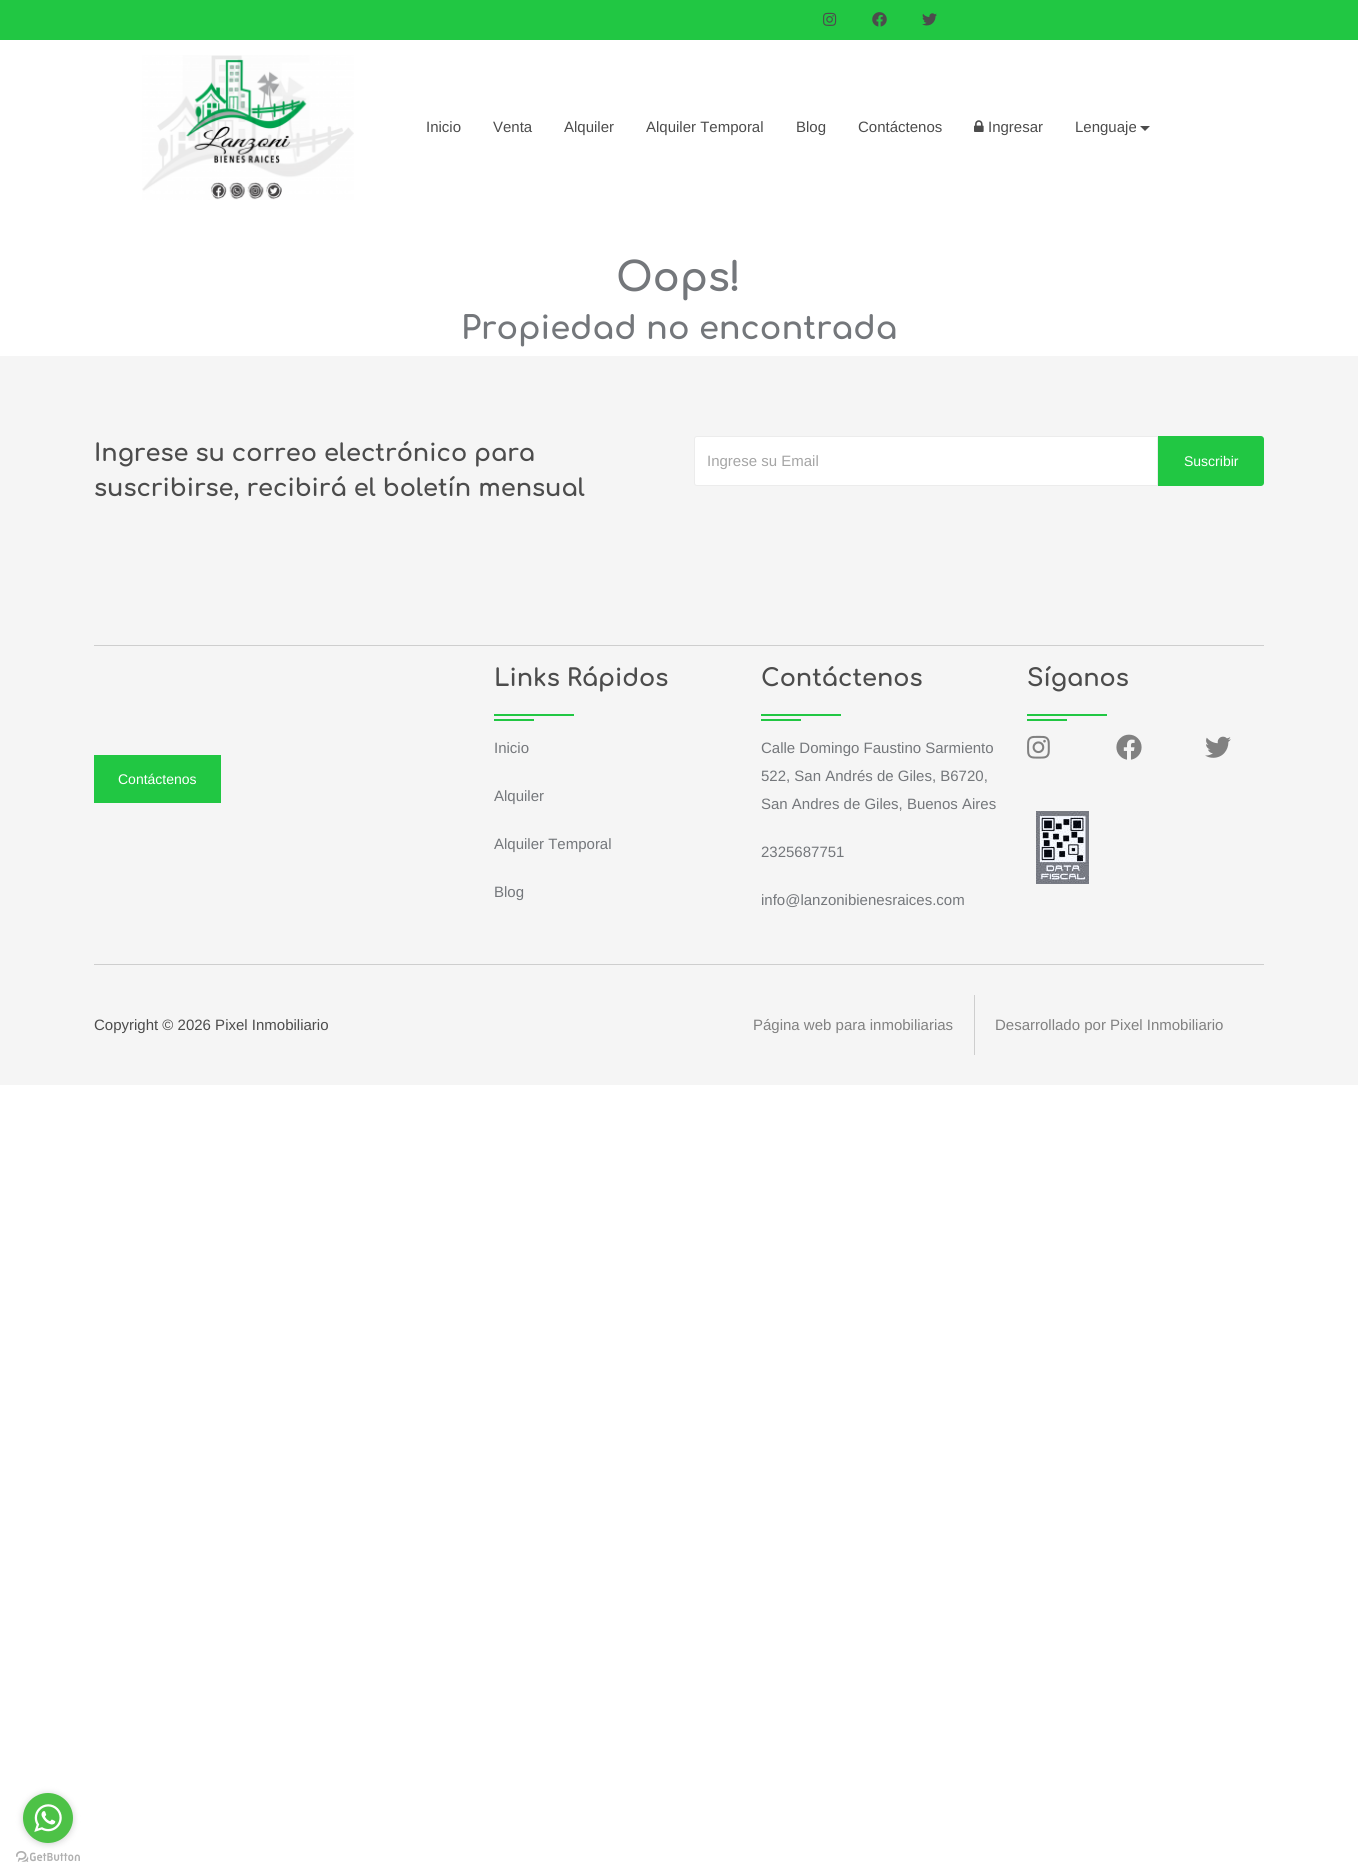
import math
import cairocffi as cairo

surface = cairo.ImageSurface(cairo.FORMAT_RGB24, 1358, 1876)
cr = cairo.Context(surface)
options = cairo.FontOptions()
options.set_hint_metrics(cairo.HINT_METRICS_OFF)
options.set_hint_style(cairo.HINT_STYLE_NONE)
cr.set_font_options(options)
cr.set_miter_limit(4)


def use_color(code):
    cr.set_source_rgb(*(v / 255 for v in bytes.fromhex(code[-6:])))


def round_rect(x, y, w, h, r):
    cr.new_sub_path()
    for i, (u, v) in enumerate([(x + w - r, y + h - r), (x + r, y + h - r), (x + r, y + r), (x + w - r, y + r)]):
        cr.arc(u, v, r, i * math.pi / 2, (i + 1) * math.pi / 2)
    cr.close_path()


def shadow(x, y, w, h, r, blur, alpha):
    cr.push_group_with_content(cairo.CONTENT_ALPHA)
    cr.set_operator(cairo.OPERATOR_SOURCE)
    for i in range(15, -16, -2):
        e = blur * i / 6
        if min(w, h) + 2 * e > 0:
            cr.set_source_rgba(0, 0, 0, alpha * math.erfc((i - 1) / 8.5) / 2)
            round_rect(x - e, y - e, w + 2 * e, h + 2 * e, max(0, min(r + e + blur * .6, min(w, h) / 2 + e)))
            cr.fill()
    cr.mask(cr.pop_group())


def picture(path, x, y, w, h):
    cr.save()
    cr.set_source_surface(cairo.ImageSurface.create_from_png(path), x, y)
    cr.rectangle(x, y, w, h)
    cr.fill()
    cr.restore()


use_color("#ffffff")
cr.paint()
use_color("#21c743")
cr.rectangle(0, 0, 1358, 40)
cr.fill()
picture("img1.png", 823, 12, 14, 14)
picture("img2.png", 872, 12, 15, 15)
picture("img3.png", 922, 13, 15, 13)
picture("img4.png", 142, 55, 212, 145)
cr.select_font_face("Liberation Sans")
cr.set_font_size(15)
use_color("#4c4c4c")
cr.move_to(426, 132)
cr.show_text("Inicio")
cr.move_to(493, 132)
cr.show_text("Venta")
cr.move_to(564, 132)
cr.show_text("Alquiler")
cr.move_to(646, 132)
cr.show_text("Alquiler Temporal")
cr.move_to(796, 132)
cr.show_text("Blog")
cr.move_to(858, 132)
cr.show_text("Contáctenos")
picture("img5.png", 974, 120, 10, 12)
cr.move_to(988, 132)
cr.show_text("Ingresar")
cr.move_to(1075, 132)
cr.show_text("Lenguaje")
cr.new_path()
cr.move_to(1140, 126)
cr.line_to(1150, 126)
cr.line_to(1145, 131)
cr.close_path()
cr.fill()
cr.select_font_face("Comfortaa", cairo.FONT_SLANT_NORMAL, cairo.FONT_WEIGHT_BOLD)
cr.set_font_size(40)
use_color("#74777b")
cr.move_to(616, 291)
cr.show_text("Oops!")
cr.set_font_size(32)
cr.move_to(461, 339)
cr.show_text("Propiedad no encontrada")
use_color("#f5f5f5")
cr.rectangle(0, 356, 1358, 729)
cr.fill()
use_color("#cecece")
cr.rectangle(94, 645, 1170, 1)
cr.fill()
cr.set_font_size(24)
use_color("#4c4c4c")
cr.move_to(94, 461)
cr.show_text("Ingrese su correo electrónico para")
cr.move_to(94, 496)
cr.show_text("suscribirse, recibirá el boletín mensual")
use_color("#ffffff")
cr.new_path()
cr.move_to(697, 436.5)
cr.line_to(1157.5, 436.5)
cr.line_to(1157.5, 485.5)
cr.line_to(697, 485.5)
cr.curve_to(695.5, 485.5, 694.5, 484.5, 694.5, 483)
cr.line_to(694.5, 439)
cr.curve_to(694.5, 437.5, 695.5, 436.5, 697, 436.5)
cr.close_path()
cr.fill_preserve()
use_color("#ececec")
cr.set_line_width(1)
cr.stroke()
cr.select_font_face("Liberation Sans")
cr.set_font_size(15)
use_color("#a5a5a5")
cr.move_to(707, 466)
cr.show_text("Ingrese su Email")
use_color("#21c743")
cr.new_path()
cr.move_to(1158, 436)
cr.line_to(1261, 436)
cr.curve_to(1262.5, 436, 1264, 437.5, 1264, 439)
cr.line_to(1264, 483)
cr.curve_to(1264, 484.5, 1262.5, 486, 1261, 486)
cr.line_to(1158, 486)
cr.close_path()
cr.fill()
cr.set_font_size(14)
use_color("#ffffff")
cr.move_to(1184, 466)
cr.show_text("Suscribir")
use_color("#cecece")
cr.rectangle(94, 964, 1170, 1)
cr.fill()
use_color("#21c743")
cr.rectangle(94, 755, 127, 48)
cr.fill()
use_color("#ffffff")
cr.move_to(118, 784)
cr.show_text("Contáctenos")
cr.select_font_face("Comfortaa", cairo.FONT_SLANT_NORMAL, cairo.FONT_WEIGHT_BOLD)
cr.set_font_size(24)
use_color("#4c4c4c")
cr.move_to(494, 686)
cr.show_text("Links Rápidos")
use_color("#21c743")
cr.rectangle(494, 714, 80, 2)
cr.fill()
cr.rectangle(494, 719, 40, 2)
cr.fill()
cr.select_font_face("Liberation Sans")
cr.set_font_size(15)
use_color("#74777b")
cr.move_to(494, 753)
cr.show_text("Inicio")
cr.move_to(494, 801)
cr.show_text("Alquiler")
cr.move_to(494, 849)
cr.show_text("Alquiler Temporal")
cr.move_to(494, 897)
cr.show_text("Blog")
cr.select_font_face("Comfortaa", cairo.FONT_SLANT_NORMAL, cairo.FONT_WEIGHT_BOLD)
cr.set_font_size(24)
use_color("#4c4c4c")
cr.move_to(761, 686)
cr.show_text("Contáctenos")
use_color("#21c743")
cr.rectangle(761, 714, 80, 2)
cr.fill()
cr.rectangle(761, 719, 40, 2)
cr.fill()
cr.select_font_face("Liberation Sans")
cr.set_font_size(15)
use_color("#74777b")
cr.move_to(761, 753)
cr.show_text("Calle Domingo Faustino Sarmiento")
cr.move_to(761, 781)
cr.show_text("522, San Andrés de Giles, B6720,")
cr.move_to(761, 809)
cr.show_text("San Andres de Giles, Buenos Aires")
cr.move_to(761, 857)
cr.show_text("2325687751")
cr.move_to(761, 905)
cr.show_text("info@lanzonibienesraices.com")
cr.select_font_face("Comfortaa", cairo.FONT_SLANT_NORMAL, cairo.FONT_WEIGHT_BOLD)
cr.set_font_size(24)
use_color("#4c4c4c")
cr.move_to(1027, 686)
cr.show_text("Síganos")
use_color("#21c743")
cr.rectangle(1027, 714, 80, 2)
cr.fill()
cr.rectangle(1027, 719, 40, 2)
cr.fill()
picture("img6.png", 1027, 735, 23, 24)
picture("img7.png", 1116, 734, 26, 26)
picture("img8.png", 1205, 736, 26, 22)
picture("img9.png", 1036, 811, 53, 73)
cr.select_font_face("Liberation Sans")
cr.set_font_size(15)
use_color("#4c4c4c")
cr.move_to(94, 1030)
cr.show_text("Copyright © 2026 Pixel Inmobiliario")
use_color("#cecece")
cr.rectangle(974, 995, 1, 60)
cr.fill()
use_color("#818181")
cr.move_to(753, 1030)
cr.show_text("Página web para inmobiliarias")
cr.move_to(995, 1030)
cr.show_text("Desarrollado por Pixel Inmobiliario")
picture("img11.png", 16, 1851, 64, 11)
use_color("#888888")
shadow(23, 1794, 50, 50, 25, 3.5, 0.4)
use_color("#4dc247")
cr.arc(48, 1818, 25, 0, 2 * math.pi)
cr.fill()
picture("img10.png", 34, 1804, 28, 28)
surface.write_to_png("result.png")
